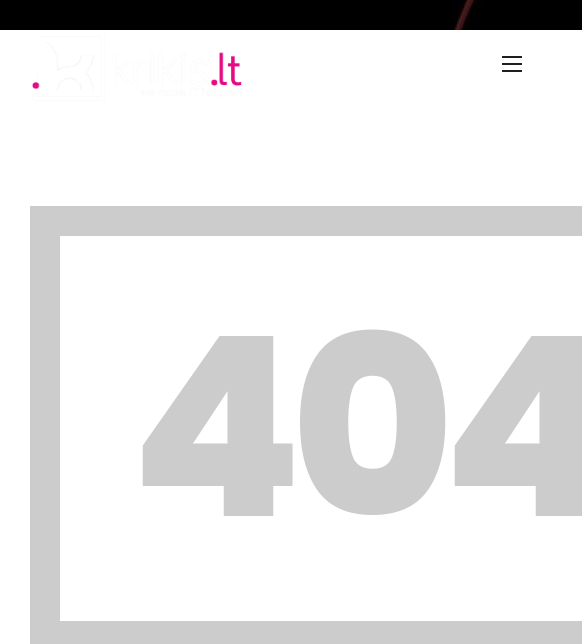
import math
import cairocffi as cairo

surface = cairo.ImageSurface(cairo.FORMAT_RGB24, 582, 644)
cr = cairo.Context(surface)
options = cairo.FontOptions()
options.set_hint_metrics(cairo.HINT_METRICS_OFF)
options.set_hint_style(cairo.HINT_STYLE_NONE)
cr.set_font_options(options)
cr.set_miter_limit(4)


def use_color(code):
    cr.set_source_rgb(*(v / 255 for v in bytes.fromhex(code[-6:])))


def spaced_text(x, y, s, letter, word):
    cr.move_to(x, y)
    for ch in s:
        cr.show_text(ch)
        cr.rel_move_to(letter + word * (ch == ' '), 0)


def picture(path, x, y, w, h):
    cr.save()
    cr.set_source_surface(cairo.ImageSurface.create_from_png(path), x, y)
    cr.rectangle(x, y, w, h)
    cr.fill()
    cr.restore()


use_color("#ffffff")
cr.paint()
picture("img1.png", 0, 0, 582, 30)
picture("img2.png", 32, 36, 210, 65)
use_color("#1f1f1f")
cr.rectangle(502, 63, 20, 2)
cr.fill()
cr.rectangle(502, 56, 20, 2)
cr.fill()
cr.rectangle(502, 70, 20, 2)
cr.fill()
cr.rectangle(45, 221, 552, 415)
use_color("#cccccc")
cr.set_line_width(30)
cr.stroke()
cr.select_font_face("Poppins ExtraBold")
cr.set_font_size(250)
spaced_text(130, 516, "404", -12.5, 0)
surface.write_to_png("result.png")
